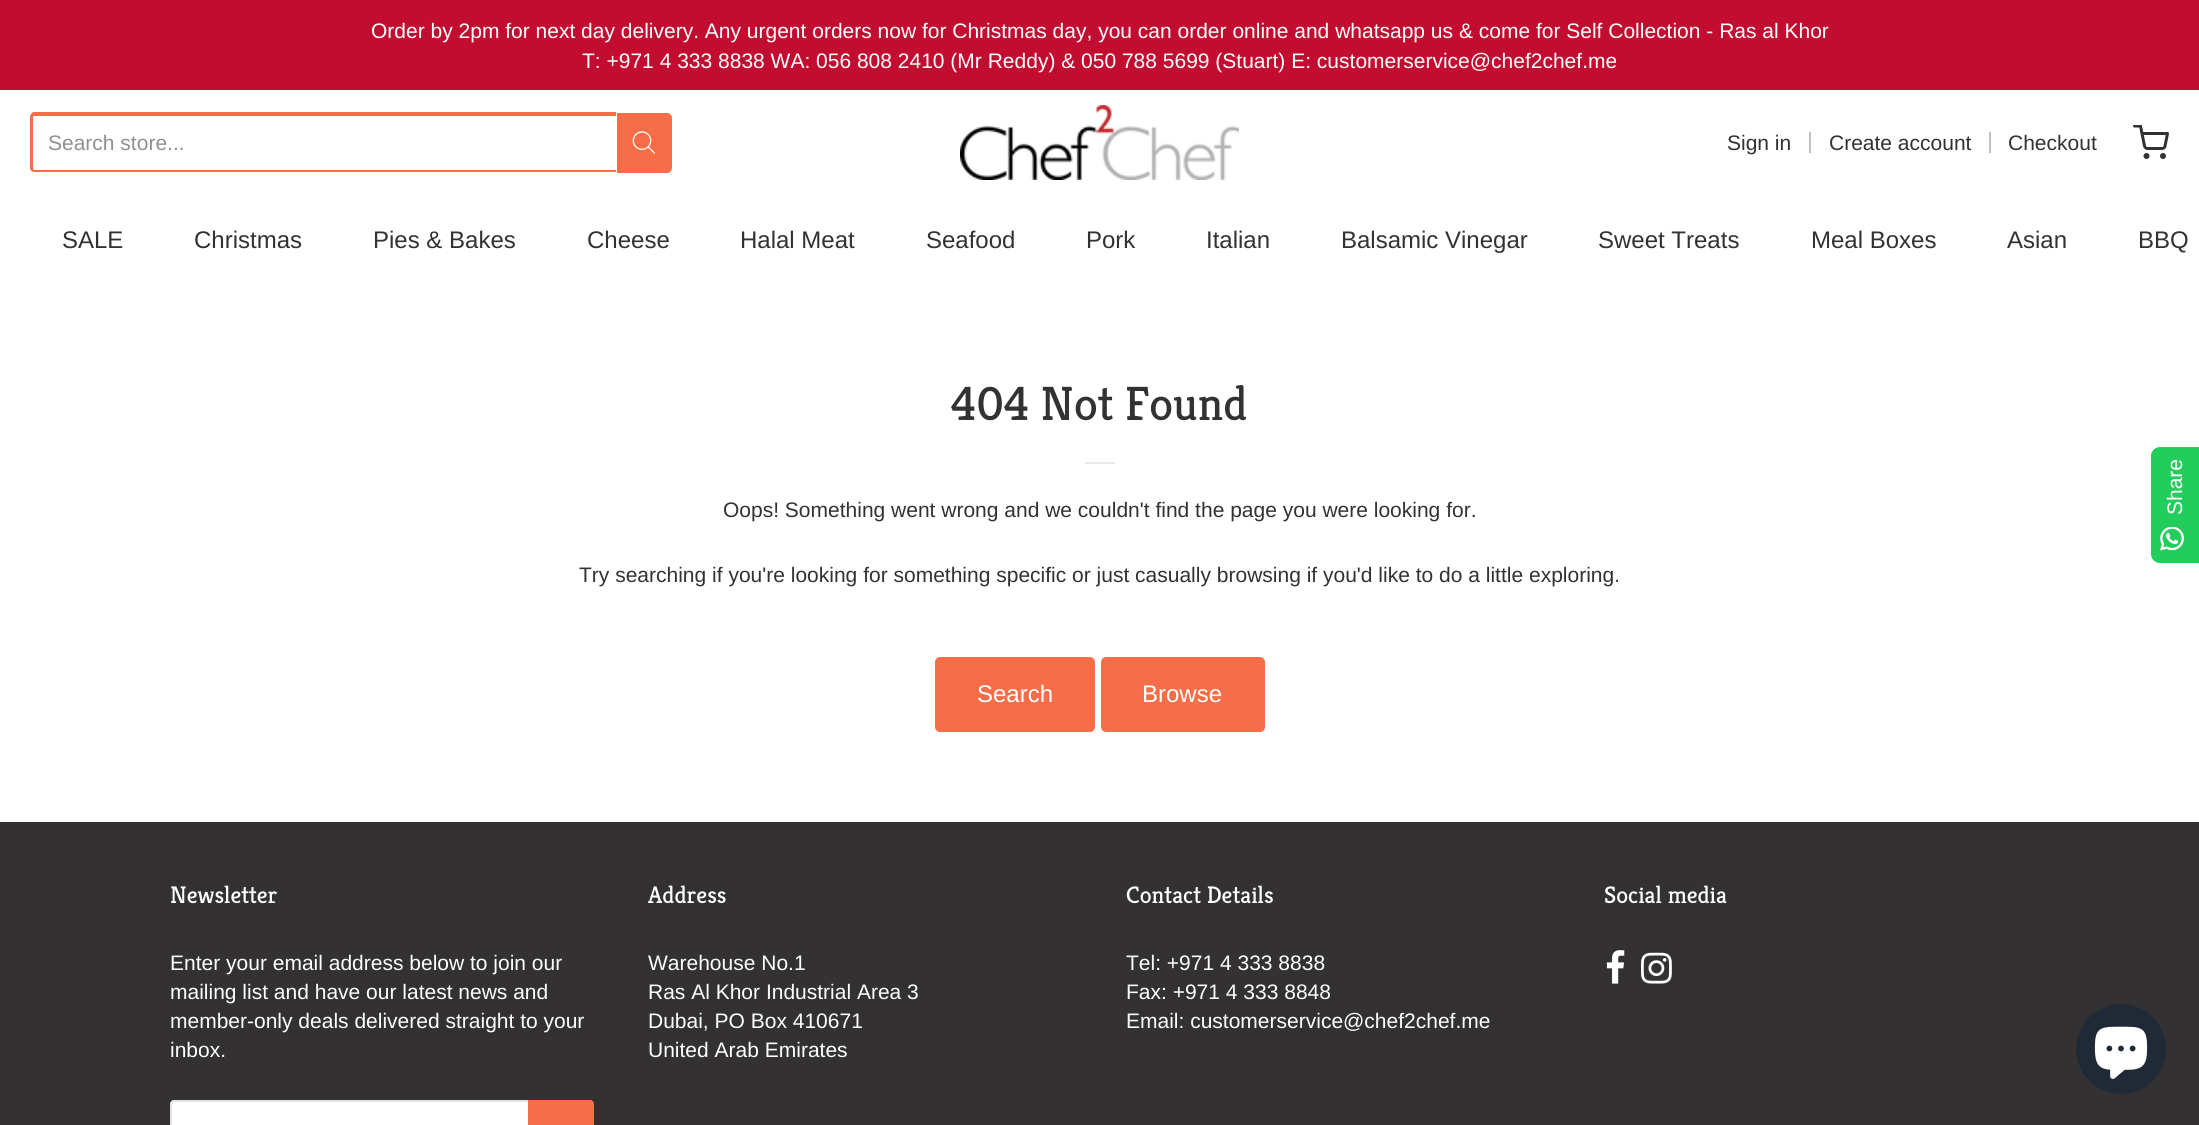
import math
import cairocffi as cairo

surface = cairo.ImageSurface(cairo.FORMAT_RGB24, 2199, 1125)
cr = cairo.Context(surface)
options = cairo.FontOptions()
options.set_hint_metrics(cairo.HINT_METRICS_OFF)
options.set_hint_style(cairo.HINT_STYLE_NONE)
cr.set_font_options(options)
cr.set_miter_limit(4)


def use_color(code):
    cr.set_source_rgb(*(v / 255 for v in bytes.fromhex(code[-6:])))


def round_rect(x, y, w, h, r):
    cr.new_sub_path()
    for i, (u, v) in enumerate([(x + w - r, y + h - r), (x + r, y + h - r), (x + r, y + r), (x + w - r, y + r)]):
        cr.arc(u, v, r, i * math.pi / 2, (i + 1) * math.pi / 2)
    cr.close_path()


def picture(path, x, y, w, h):
    cr.save()
    cr.set_source_surface(cairo.ImageSurface.create_from_png(path), x, y)
    cr.rectangle(x, y, w, h)
    cr.fill()
    cr.restore()


use_color("#ffffff")
cr.paint()
use_color("#c30d30")
cr.rectangle(0, 0, 2199, 90)
cr.fill()
cr.select_font_face("Liberation Sans")
cr.set_font_size(21)
use_color("#ffffff")
cr.move_to(371, 38)
cr.show_text("Order by 2pm for next day delivery. Any urgent orders now for Christmas day, you can order online and whatsapp us & come for Self Collection - Ras al Khor")
cr.move_to(582, 68)
cr.show_text("T: +971 4 333 8838 WA: 056 808 2410 (Mr Reddy) & 050 788 5699 (Stuart) E: customerservice@chef2chef.me")
use_color("#f66d47")
cr.set_fill_rule(cairo.FILL_RULE_EVEN_ODD)
cr.new_path()
cr.move_to(34, 112)
cr.line_to(616, 112)
cr.line_to(616, 172)
cr.line_to(34, 172)
cr.curve_to(32, 172, 30, 170, 30, 168)
cr.line_to(30, 117)
cr.curve_to(30, 115, 32, 112, 34, 112)
cr.close_path()
cr.move_to(34, 116)
cr.line_to(616, 116)
cr.line_to(616, 170)
cr.line_to(34, 170)
cr.curve_to(34, 170, 33, 169, 33, 168)
cr.line_to(33, 117)
cr.curve_to(33, 116, 34, 116, 34, 116)
cr.close_path()
cr.fill()
use_color("#919090")
cr.move_to(48, 150)
cr.show_text("Search store...")
use_color("#f66d47")
cr.new_path()
cr.move_to(618.5, 114.5)
cr.line_to(667, 114.5)
cr.curve_to(669, 114.5, 670.5, 116, 670.5, 118)
cr.line_to(670.5, 168)
cr.curve_to(670.5, 170, 669, 171.5, 667, 171.5)
cr.line_to(618.5, 171.5)
cr.close_path()
cr.fill_preserve()
cr.set_line_width(3)
cr.stroke()
picture("img1.png", 632, 131, 23, 23)
picture("img2.png", 960, 105, 279, 75)
use_color("#333131")
cr.move_to(1727, 150)
cr.show_text("Sign in")
use_color("#c2c1c1")
cr.rectangle(1809, 132, 2, 21)
cr.fill()
use_color("#333131")
cr.move_to(1829, 150)
cr.show_text("Create account")
use_color("#c2c1c1")
cr.rectangle(1989, 132, 2, 21)
cr.fill()
use_color("#333131")
cr.move_to(2008, 150)
cr.show_text("Checkout")
cr.save()
cr.set_fill_rule(cairo.FILL_RULE_WINDING)
cr.rectangle(2133, 125, 36, 36)
cr.clip()
cr.new_path()
cr.move_to(2134.5, 126)
cr.line_to(2140.5, 126)
cr.line_to(2144.5, 146)
cr.curve_to(2145, 147.5, 2146, 148.5, 2147.5, 148.5)
cr.line_to(2162, 148.5)
cr.curve_to(2163.5, 148.5, 2165, 147.5, 2165, 146)
cr.line_to(2167.5, 133.5)
cr.line_to(2142, 133.5)
cr.set_line_cap(cairo.LINE_CAP_ROUND)
cr.set_line_join(cairo.LINE_JOIN_ROUND)
cr.stroke()
cr.restore()
cr.arc(2146.5, 156, 1.5, 0, 2 * math.pi)
cr.stroke()
cr.arc(2163, 156, 1.5, 0, 2 * math.pi)
cr.stroke()
cr.set_font_size(24)
cr.move_to(62, 248)
cr.show_text("SALE")
cr.move_to(194, 248)
cr.show_text("Christmas")
cr.move_to(373, 248)
cr.show_text("Pies & Bakes")
cr.move_to(587, 248)
cr.show_text("Cheese")
cr.move_to(740, 248)
cr.show_text("Halal Meat")
cr.move_to(926, 248)
cr.show_text("Seafood")
cr.move_to(1086, 248)
cr.show_text("Pork")
cr.move_to(1206, 248)
cr.show_text("Italian")
cr.move_to(1341, 248)
cr.show_text("Balsamic Vinegar")
cr.move_to(1598, 248)
cr.show_text("Sweet Treats")
cr.move_to(1811, 248)
cr.show_text("Meal Boxes")
cr.move_to(2007, 248)
cr.show_text("Asian")
cr.move_to(2138, 248)
cr.show_text("BBQ")
cr.select_font_face("Kreon")
cr.set_font_size(48)
cr.move_to(951, 420)
cr.show_text("404 Not Found")
use_color("#eae8e8")
cr.rectangle(1085, 462, 30, 2)
cr.fill()
cr.select_font_face("Liberation Sans")
cr.set_font_size(21)
use_color("#333131")
cr.move_to(723, 517)
cr.show_text("Oops! Something went wrong and we couldn't find the page you were looking for.")
cr.move_to(579, 582)
cr.show_text("Try searching if you're looking for something specific or just casually browsing if you'd like to do a little exploring.")
use_color("#f66d47")
round_rect(936.5, 658.5, 157, 72, 3.5)
cr.fill_preserve()
cr.stroke()
cr.set_font_size(24)
use_color("#ffffff")
cr.move_to(977, 702)
cr.show_text("Search")
use_color("#f66d47")
round_rect(1102.5, 658.5, 161, 72, 3.5)
cr.fill_preserve()
cr.stroke()
use_color("#ffffff")
cr.move_to(1142, 702)
cr.show_text("Browse")
use_color("#22cd5b")
cr.new_path()
cr.move_to(2160, 447)
cr.line_to(2199, 447)
cr.line_to(2199, 563)
cr.line_to(2160, 563)
cr.curve_to(2155, 563, 2151, 559, 2151, 554)
cr.line_to(2151, 456)
cr.curve_to(2151, 451, 2155, 447, 2160, 447)
cr.close_path()
cr.fill()
cr.set_font_size(21)
use_color("#ffffff")
cr.save()
cr.translate(2182, 515)
cr.rotate(-90 * math.pi / 180)
cr.move_to(0, 0)
cr.show_text("Share")
cr.restore()
picture("img3.png", 2160, 527, 24, 24)
use_color("#333132")
cr.rectangle(0, 822, 2199, 303)
cr.fill()
cr.select_font_face("Kreon")
cr.set_font_size(24)
use_color("#ffffff")
cr.move_to(170, 903)
cr.show_text("Newsletter")
cr.select_font_face("Liberation Sans")
cr.set_font_size(21)
cr.move_to(170, 970)
cr.show_text("Enter your email address below to join our")
cr.move_to(170, 999)
cr.show_text("mailing list and have our latest news and")
cr.move_to(170, 1028)
cr.show_text("member-only deals delivered straight to your")
cr.move_to(170, 1057)
cr.show_text("inbox.")
cr.new_path()
cr.move_to(175, 1100)
cr.line_to(528, 1100)
cr.line_to(528, 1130)
cr.line_to(175, 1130)
cr.curve_to(172, 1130, 170, 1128, 170, 1125)
cr.line_to(170, 1105)
cr.curve_to(170, 1102, 172, 1100, 175, 1100)
cr.close_path()
cr.fill()
use_color("#e1e3e4")
cr.new_path()
cr.move_to(174, 1100)
cr.line_to(528, 1100)
cr.line_to(528, 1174)
cr.line_to(174, 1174)
cr.curve_to(172, 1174, 170, 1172, 170, 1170)
cr.line_to(170, 1104)
cr.curve_to(170, 1102, 172, 1100, 174, 1100)
cr.close_path()
cr.move_to(174, 1102)
cr.line_to(528, 1102)
cr.line_to(528, 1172)
cr.line_to(174, 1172)
cr.curve_to(173, 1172, 172, 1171, 172, 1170)
cr.line_to(172, 1104)
cr.curve_to(172, 1103, 173, 1102, 174, 1102)
cr.close_path()
cr.fill()
use_color("#f66d47")
cr.new_path()
cr.move_to(528, 1100)
cr.line_to(589, 1100)
cr.curve_to(592, 1100, 594, 1102, 594, 1105)
cr.line_to(594, 1125)
cr.curve_to(594, 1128, 592, 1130, 589, 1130)
cr.line_to(528, 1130)
cr.close_path()
cr.fill()
cr.new_path()
cr.move_to(528, 1100)
cr.line_to(590, 1100)
cr.curve_to(592, 1100, 594, 1102, 594, 1104)
cr.line_to(594, 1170)
cr.curve_to(594, 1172, 592, 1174, 590, 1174)
cr.line_to(528, 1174)
cr.close_path()
cr.move_to(528, 1102)
cr.line_to(590, 1102)
cr.curve_to(590, 1102, 591, 1103, 591, 1104)
cr.line_to(591, 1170)
cr.curve_to(591, 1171, 590, 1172, 590, 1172)
cr.line_to(528, 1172)
cr.close_path()
cr.fill()
cr.select_font_face("Kreon")
cr.set_font_size(24)
use_color("#ffffff")
cr.move_to(648, 903)
cr.show_text("Address")
cr.select_font_face("Liberation Sans")
cr.set_font_size(21)
cr.move_to(648, 970)
cr.show_text("Warehouse No.1")
cr.move_to(648, 999)
cr.show_text("Ras Al Khor Industrial Area 3")
cr.move_to(648, 1028)
cr.show_text("Dubai, PO Box 410671")
cr.move_to(648, 1057)
cr.show_text("United Arab Emirates")
cr.select_font_face("Kreon")
cr.set_font_size(24)
cr.move_to(1126, 903)
cr.show_text("Contact Details")
cr.select_font_face("Liberation Sans")
cr.set_font_size(21)
cr.move_to(1126, 970)
cr.show_text("Tel: +971 4 333 8838")
cr.move_to(1126, 999)
cr.show_text("Fax: +971 4 333 8848")
cr.move_to(1126, 1028)
cr.show_text("Email: customerservice@chef2chef.me")
cr.select_font_face("Kreon")
cr.set_font_size(24)
cr.move_to(1604, 903)
cr.show_text("Social media")
picture("img4.png", 1606, 950, 19, 34)
picture("img5.png", 1641, 952, 31, 32)
use_color("#202a36")
cr.arc(2121, 1049, 45, 0, 2 * math.pi)
cr.fill()
picture("img6.png", 2094, 1026, 54, 53)
surface.write_to_png("result.png")
